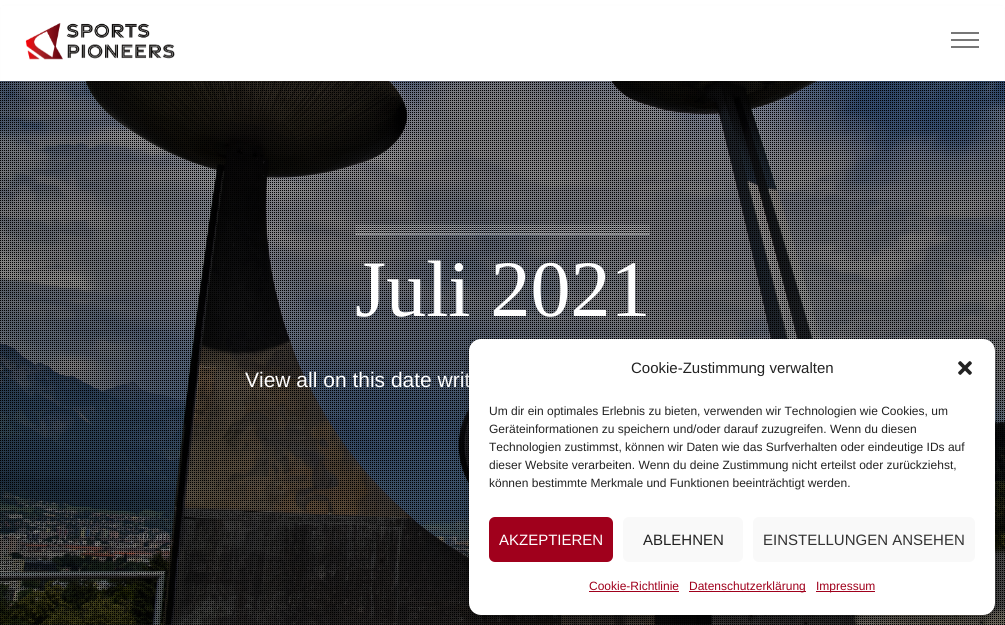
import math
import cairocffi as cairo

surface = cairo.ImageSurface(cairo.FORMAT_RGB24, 1005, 625)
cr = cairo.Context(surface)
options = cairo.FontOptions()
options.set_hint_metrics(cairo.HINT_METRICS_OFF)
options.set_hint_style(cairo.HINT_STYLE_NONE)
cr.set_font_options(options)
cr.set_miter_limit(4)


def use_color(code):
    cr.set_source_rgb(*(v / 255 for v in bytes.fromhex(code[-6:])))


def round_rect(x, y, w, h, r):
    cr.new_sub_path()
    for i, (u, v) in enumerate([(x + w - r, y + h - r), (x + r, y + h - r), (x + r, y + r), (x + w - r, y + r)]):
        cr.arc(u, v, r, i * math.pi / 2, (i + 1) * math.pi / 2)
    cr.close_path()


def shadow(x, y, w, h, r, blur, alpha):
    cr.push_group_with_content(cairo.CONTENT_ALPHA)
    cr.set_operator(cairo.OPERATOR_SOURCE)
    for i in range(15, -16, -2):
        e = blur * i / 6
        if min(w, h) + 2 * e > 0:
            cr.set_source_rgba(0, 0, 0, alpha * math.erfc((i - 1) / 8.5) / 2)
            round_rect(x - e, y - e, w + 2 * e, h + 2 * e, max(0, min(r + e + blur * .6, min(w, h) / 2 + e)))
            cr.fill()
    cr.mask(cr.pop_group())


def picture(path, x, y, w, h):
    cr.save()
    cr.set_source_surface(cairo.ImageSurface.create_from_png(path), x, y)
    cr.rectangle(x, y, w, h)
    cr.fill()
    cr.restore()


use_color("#ffffff")
cr.paint()
picture("img2.png", 0, 81, 1005, 544)
use_color("#808080")
shadow(935, 551, 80, 60, 2, 2.5, 1)
picture("img3.png", 0, 81, 1005, 544)
use_color("#000000")
shadow(4, 9, 997, 73, 0, 2.5, 0.1)
use_color("#ffffff")
cr.rectangle(1, 6, 1003, 75)
cr.fill()
picture("img1.png", 25, 23, 150, 37)
use_color("#777777")
cr.rectangle(951, 39, 28, 2)
cr.fill()
cr.rectangle(951, 32, 28, 2)
cr.fill()
cr.rectangle(951, 46, 28, 2)
cr.fill()
picture("img4.png", 355, 225, 295, 10)
cr.select_font_face("Liberation Serif")
cr.set_font_size(80)
use_color("#ffffff")
cr.move_to(355, 316)
cr.show_text("Juli 2021")
cr.select_font_face("Liberation Sans")
cr.set_font_size(21)
cr.move_to(245, 387)
cr.show_text("View all on this date writ")
use_color("#000000")
shadow(469, 345, 526, 276, 12, 3, 0.23)
shadow(469, 349, 526, 276, 12, 10, 0.19)
use_color("#ffffff")
round_rect(469, 339, 526, 276, 12)
cr.fill()
cr.set_font_size(15)
use_color("#222222")
cr.move_to(631, 373)
cr.show_text("Cookie-Zustimmung verwalten")
picture("img5.png", 958, 361, 14, 14)
cr.set_font_size(12)
cr.move_to(489, 415)
cr.show_text("Um dir ein optimales Erlebnis zu bieten, verwenden wir Technologien wie Cookies, um")
cr.move_to(489, 433)
cr.show_text("Geräteinformationen zu speichern und/oder darauf zuzugreifen. Wenn du diesen")
cr.move_to(489, 451)
cr.show_text("Technologien zustimmst, können wir Daten wie das Surfverhalten oder eindeutige IDs auf")
cr.move_to(489, 469)
cr.show_text("dieser Website verarbeiten. Wenn du deine Zustimmung nicht erteilst oder zurückziehst,")
cr.move_to(489, 487)
cr.show_text("können bestimmte Merkmale und Funktionen beeinträchtigt werden.")
use_color("#a0001c")
round_rect(489, 517, 124, 45, 6)
cr.fill()
cr.set_font_size(15)
use_color("#ffffff")
cr.move_to(499, 545)
cr.show_text("AKZEPTIEREN")
use_color("#f9f9f9")
round_rect(623, 517, 120, 45, 6)
cr.fill()
use_color("#222222")
cr.move_to(643, 545)
cr.show_text("ABLEHNEN")
use_color("#f9f9f9")
round_rect(753, 517, 222, 45, 6)
cr.fill()
use_color("#333333")
cr.move_to(763, 545)
cr.show_text("EINSTELLUNGEN ANSEHEN")
cr.set_font_size(12)
use_color("#a0001c")
cr.move_to(589, 590)
cr.show_text("Cookie-Richtlinie")
cr.rectangle(589, 591, 90, 1)
cr.fill()
cr.rectangle(689, 591, 117, 1)
cr.fill()
cr.move_to(689, 590)
cr.show_text("Datenschutzerklärung")
cr.rectangle(816, 591, 59, 1)
cr.fill()
cr.move_to(816, 590)
cr.show_text("Impressum")
surface.write_to_png("result.png")
